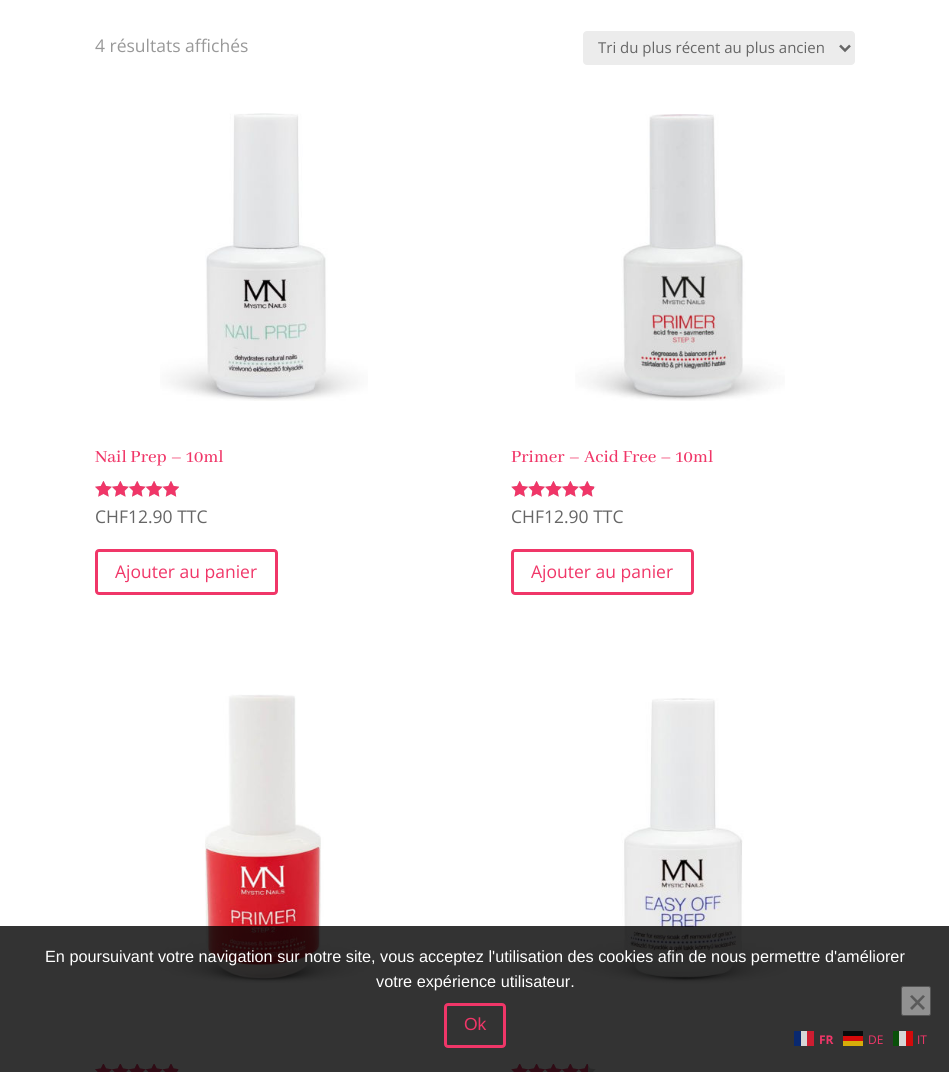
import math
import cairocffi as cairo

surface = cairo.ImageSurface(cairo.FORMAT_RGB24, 949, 1072)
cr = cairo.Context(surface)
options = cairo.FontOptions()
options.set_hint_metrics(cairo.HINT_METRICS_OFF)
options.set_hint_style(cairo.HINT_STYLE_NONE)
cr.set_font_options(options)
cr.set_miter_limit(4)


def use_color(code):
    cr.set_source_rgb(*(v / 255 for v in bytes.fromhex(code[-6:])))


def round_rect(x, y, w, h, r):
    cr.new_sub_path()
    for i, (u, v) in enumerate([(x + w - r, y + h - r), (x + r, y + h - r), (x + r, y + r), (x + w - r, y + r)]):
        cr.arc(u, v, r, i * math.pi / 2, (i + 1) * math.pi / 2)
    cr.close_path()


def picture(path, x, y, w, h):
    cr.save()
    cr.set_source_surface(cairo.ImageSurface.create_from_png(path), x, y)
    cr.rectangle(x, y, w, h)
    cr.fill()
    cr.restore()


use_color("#ffffff")
cr.paint()
cr.select_font_face("Open Sans")
cr.set_font_size(17.5)
use_color("#999999")
cr.move_to(95, 52)
cr.show_text("4 résultats affichés")
use_color("#ececec")
round_rect(583, 31, 272, 34, 4)
cr.fill()
cr.new_path()
cr.move_to(840, 45.5)
cr.line_to(845, 50.5)
cr.line_to(850, 45.5)
use_color("#666666")
cr.set_line_width(2.5)
cr.stroke()
cr.set_font_size(15)
cr.move_to(598, 53)
cr.show_text("Tri du plus récent au plus ancien")
picture("img1.png", 160, 113, 208, 288)
cr.select_font_face("Abhaya Libre Medium Medium")
cr.set_font_size(18.75)
use_color("#f03668")
cr.move_to(95, 462)
cr.show_text("Nail Prep – 10ml")
picture("img2.png", 95, 481, 85, 16)
picture("img3.png", 95, 481, 84, 16)
cr.select_font_face("Open Sans")
cr.set_font_size(17.5)
use_color("#666666")
cr.move_to(95, 523)
cr.show_text("CHF12.90 TTC")
round_rect(96.5, 550.5, 180, 43, 2.5)
use_color("#f03668")
cr.set_line_width(3)
cr.stroke()
cr.move_to(115, 578)
cr.show_text("Ajouter au panier")
picture("img4.png", 575, 114, 210, 287)
cr.select_font_face("Abhaya Libre Medium Medium")
cr.set_font_size(18.75)
cr.move_to(511, 462)
cr.show_text("Primer – Acid Free – 10ml")
picture("img5.png", 511, 481, 85, 16)
picture("img6.png", 511, 481, 83, 16)
cr.select_font_face("Open Sans")
cr.set_font_size(17.5)
use_color("#666666")
cr.move_to(511, 523)
cr.show_text("CHF12.90 TTC")
round_rect(512.5, 550.5, 180, 43, 2.5)
use_color("#f03668")
cr.stroke()
cr.move_to(531, 578)
cr.show_text("Ajouter au panier")
picture("img7.png", 159, 694, 210, 289)
picture("img8.png", 95, 1064, 85, 8)
picture("img9.png", 95, 1064, 83, 8)
picture("img10.png", 580, 698, 208, 286)
picture("img11.png", 511, 1064, 85, 8)
picture("img12.png", 511, 1064, 77, 8)
cr.set_source_rgba(0, 0, 0, 0.8)
cr.rectangle(0, 926, 949, 146)
cr.fill()
cr.select_font_face("Liberation Sans")
cr.set_font_size(16.25)
use_color("#ffffff")
cr.move_to(45, 962)
cr.show_text("En poursuivant votre navigation sur notre site, vous acceptez l'utilisation des cookies afin de nous permettre d'améliorer")
cr.move_to(376, 987)
cr.show_text("votre expérience utilisateur.")
use_color("#919191")
round_rect(901.5, 986.5, 29, 29, 2)
cr.fill_preserve()
use_color("#555555")
cr.set_line_width(1)
cr.stroke()
use_color("#5a5a5a")
cr.new_path()
cr.move_to(923, 995)
cr.line_to(925, 996.5)
cr.line_to(912, 1010)
cr.line_to(910, 1008)
cr.close_path()
cr.fill()
cr.new_path()
cr.move_to(910, 996.5)
cr.line_to(912, 995)
cr.line_to(925, 1008)
cr.line_to(923, 1010)
cr.close_path()
cr.fill()
round_rect(445.5, 1004.5, 59, 42, 2.5)
use_color("#f03668")
cr.set_line_width(3)
cr.stroke()
cr.set_font_size(17.5)
cr.move_to(464, 1030)
cr.show_text("Ok")
cr.select_font_face("Open Sans", cairo.FONT_SLANT_NORMAL, cairo.FONT_WEIGHT_BOLD)
cr.set_font_size(12)
cr.move_to(819, 1044)
cr.show_text("FR")
use_color("#d6d6d6")
cr.rectangle(801, 1031, 6, 15)
cr.fill()
use_color("#0a2970")
cr.rectangle(794, 1031, 7, 15)
cr.fill()
use_color("#cd1d31")
cr.rectangle(807, 1031, 7, 15)
cr.fill()
cr.select_font_face("Open Sans")
use_color("#f03668")
cr.move_to(868, 1044)
cr.show_text("DE")
use_color("#d6ad0a")
cr.rectangle(843, 1041, 20, 5)
cr.fill()
use_color("#0a0a0a")
cr.rectangle(843, 1031, 20, 5)
cr.fill()
use_color("#d60a0a")
cr.rectangle(843, 1036, 20, 5)
cr.fill()
use_color("#f03668")
cr.move_to(917, 1044)
cr.show_text("IT")
use_color("#d6d6d6")
cr.rectangle(899, 1031, 7, 15)
cr.fill()
use_color("#0a500a")
cr.rectangle(893, 1031, 6, 15)
cr.fill()
use_color("#d40a0a")
cr.rectangle(906, 1031, 7, 15)
cr.fill()
surface.write_to_png("result.png")
